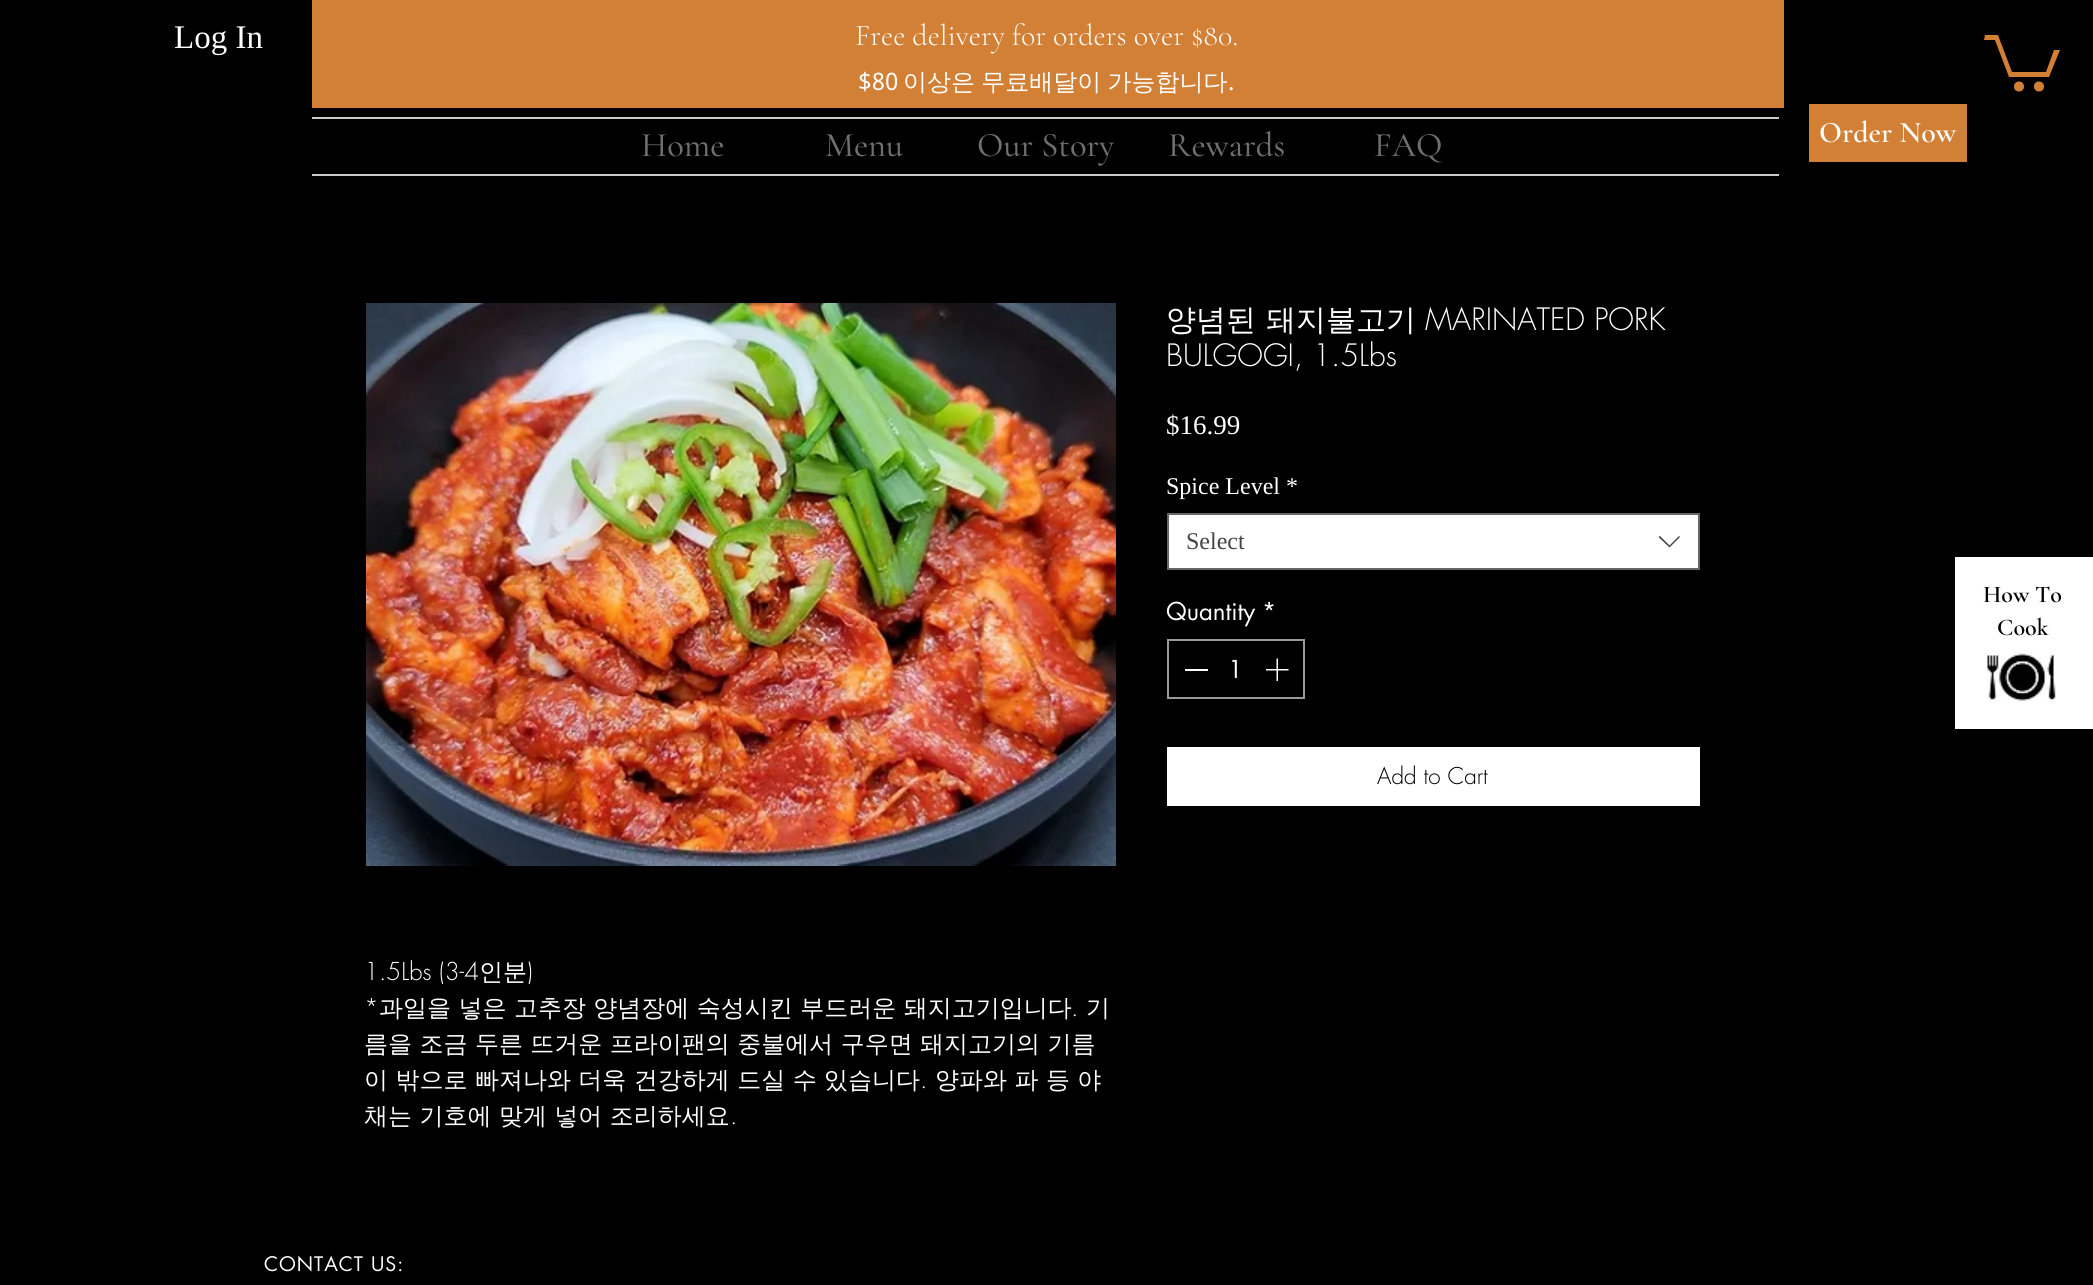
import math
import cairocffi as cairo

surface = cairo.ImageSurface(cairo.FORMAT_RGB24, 2093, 1285)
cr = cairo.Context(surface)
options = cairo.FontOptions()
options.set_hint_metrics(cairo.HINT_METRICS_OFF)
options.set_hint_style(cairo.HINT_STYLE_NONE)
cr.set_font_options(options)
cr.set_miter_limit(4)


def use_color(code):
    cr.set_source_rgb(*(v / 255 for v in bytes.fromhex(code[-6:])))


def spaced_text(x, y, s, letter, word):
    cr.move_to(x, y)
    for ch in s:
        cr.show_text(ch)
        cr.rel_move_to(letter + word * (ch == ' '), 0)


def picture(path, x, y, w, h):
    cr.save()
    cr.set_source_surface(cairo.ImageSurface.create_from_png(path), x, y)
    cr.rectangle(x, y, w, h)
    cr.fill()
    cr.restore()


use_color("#000000")
cr.paint()
cr.select_font_face("Liberation Serif")
cr.set_font_size(33)
use_color("#ffffff")
cr.move_to(174, 48)
cr.show_text("Log In")
use_color("#d28036")
cr.rectangle(312, 0, 1472, 108)
cr.fill()
cr.select_font_face("Cormorant Garamond Light")
cr.set_font_size(30)
use_color("#ffffff")
cr.move_to(855, 45)
cr.show_text("Free delivery for orders over $80.")
cr.select_font_face("Noto Sans")
cr.set_font_size(24)
cr.move_to(858, 90)
cr.show_text("$80")
cr.select_font_face("WenQuanYi Zen Hei Medium")
spaced_text(903, 90, "이상은 무료배달이 가능합니다", 0, -1)
cr.select_font_face("Noto Sans")
cr.move_to(1228, 90)
cr.show_text(".")
use_color("#cacaca")
cr.rectangle(312, 117, 1467, 2)
cr.fill()
cr.rectangle(312, 174, 1467, 2)
cr.fill()
cr.select_font_face("Cormorant Garamond Medium")
cr.set_font_size(34.5)
use_color("#707070")
cr.move_to(641, 156)
cr.show_text("Home")
cr.move_to(825, 156)
cr.show_text("Menu")
cr.move_to(977, 156)
cr.show_text("Our Story")
cr.move_to(1168, 156)
cr.show_text("Rewards")
cr.move_to(1374, 156)
cr.show_text("FAQ")
use_color("#d28036")
cr.rectangle(1809, 104, 158, 58)
cr.fill()
cr.select_font_face("Cormorant Garamond SemiBold")
cr.set_font_size(30)
use_color("#ffffff")
cr.move_to(1819, 142)
cr.show_text("Order Now")
use_color("#d28036")
cr.new_path()
cr.move_to(2060, 50)
cr.line_to(2049, 77)
cr.line_to(2009, 77)
cr.line_to(1995, 40)
cr.line_to(1984, 40)
cr.line_to(1985, 35)
cr.line_to(1998, 35)
cr.line_to(2012, 72)
cr.line_to(2046, 72)
cr.line_to(2054, 50)
cr.fill()
cr.arc(2039, 86.5, 5, 0, 2 * math.pi)
cr.fill()
cr.arc(2019, 86.5, 5, 0, 2 * math.pi)
cr.fill()
cr.select_font_face("WenQuanYi Zen Hei Medium")
use_color("#ffffff")
cr.move_to(1166, 330)
cr.show_text("양념된")
cr.move_to(1266, 330)
cr.show_text("돼지불고기")
cr.select_font_face("futura Light")
cr.move_to(1425, 330)
cr.show_text("MARINATED PORK")
cr.move_to(1166, 366)
cr.show_text("BULGOGI, 1.5Lbs")
cr.select_font_face("Liberation Serif")
cr.set_font_size(27)
cr.move_to(1166, 434)
cr.show_text("$16.99")
cr.set_font_size(24)
cr.move_to(1166, 494)
cr.show_text("Spice Level *")
cr.rectangle(1168, 514, 531, 55)
cr.fill_preserve()
use_color("#666666")
cr.stroke()
use_color("#444444")
cr.move_to(1186, 549)
cr.show_text("Select")
cr.set_fill_rule(cairo.FILL_RULE_EVEN_ODD)
cr.new_path()
cr.move_to(1679, 536)
cr.line_to(1680, 537)
cr.line_to(1669.5, 547.5)
cr.line_to(1658.5, 537)
cr.line_to(1660, 536)
cr.line_to(1669.5, 545.5)
cr.close_path()
cr.fill()
cr.select_font_face("futura")
use_color("#ffffff")
cr.move_to(1166, 620)
cr.show_text("Quantity")
cr.move_to(1262, 620)
cr.show_text("*")
cr.rectangle(1168, 640, 136, 58)
use_color("#999999")
cr.stroke()
use_color("#ffffff")
cr.rectangle(1185, 669, 23, 2)
cr.fill()
cr.move_to(1228, 678)
cr.show_text("1")
picture("img1.png", 1266, 658, 23, 23)
cr.rectangle(1167, 747, 533, 59)
cr.fill()
cr.select_font_face("futura Light")
cr.set_font_size(22.5)
use_color("#000000")
cr.move_to(1377, 784)
cr.show_text("Add to Cart")
picture("img2.png", 366, 303, 750, 563)
cr.set_font_size(24)
use_color("#ffffff")
cr.move_to(364, 980)
cr.show_text("1.5Lbs (3-4")
cr.select_font_face("WenQuanYi Zen Hei Medium")
cr.move_to(479, 980)
cr.show_text("인분")
cr.select_font_face("futura Light")
cr.move_to(527, 980)
cr.show_text(")")
cr.move_to(364, 1016)
cr.show_text("*")
cr.select_font_face("WenQuanYi Zen Hei Medium")
spaced_text(379, 1016, "과일을 넣은 고추장 양념장에 숙성시킨 부드러운 돼지고기입니다", 0, 0.25)
cr.select_font_face("futura Light")
cr.move_to(1071, 1016)
cr.show_text(".")
cr.select_font_face("WenQuanYi Zen Hei Medium")
cr.move_to(1086, 1016)
cr.show_text("기")
spaced_text(364, 1052, "름을 조금 두른 뜨거운 프라이팬의 중불에서 구우면 돼지고기의 기름", 0, 0.25)
spaced_text(364, 1088, "이 밖으로 빠져나와 더욱 건강하게 드실 수 있습니다", 0, 0.25)
cr.select_font_face("futura Light")
cr.move_to(920, 1088)
cr.show_text(".")
cr.select_font_face("WenQuanYi Zen Hei Medium")
spaced_text(935, 1088, "양파와 파 등 야", 0, 0.25)
spaced_text(364, 1124, "채는 기호에 맞게 넣어 조리하세요", 0, 0.25)
cr.select_font_face("futura Light")
cr.move_to(730, 1124)
cr.show_text(".")
cr.rectangle(1955, 557, 138, 172)
cr.fill()
cr.select_font_face("Cormorant Garamond SemiBold")
use_color("#000000")
cr.move_to(1983, 602)
cr.show_text("How To")
cr.move_to(1997, 635)
cr.show_text("Cook")
picture("img3.png", 1987, 650, 69, 53)
cr.select_font_face("futura")
cr.set_font_size(19.5)
use_color("#ffffff")
spaced_text(264, 1271, "CONTACT US:", 1, 0)
surface.write_to_png("result.png")
